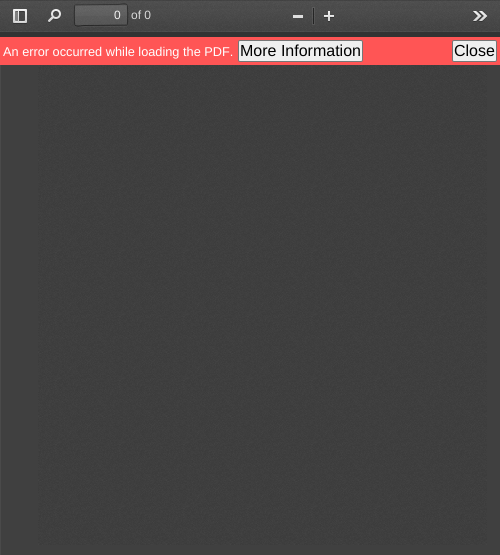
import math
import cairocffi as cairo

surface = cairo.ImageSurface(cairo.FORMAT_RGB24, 500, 555)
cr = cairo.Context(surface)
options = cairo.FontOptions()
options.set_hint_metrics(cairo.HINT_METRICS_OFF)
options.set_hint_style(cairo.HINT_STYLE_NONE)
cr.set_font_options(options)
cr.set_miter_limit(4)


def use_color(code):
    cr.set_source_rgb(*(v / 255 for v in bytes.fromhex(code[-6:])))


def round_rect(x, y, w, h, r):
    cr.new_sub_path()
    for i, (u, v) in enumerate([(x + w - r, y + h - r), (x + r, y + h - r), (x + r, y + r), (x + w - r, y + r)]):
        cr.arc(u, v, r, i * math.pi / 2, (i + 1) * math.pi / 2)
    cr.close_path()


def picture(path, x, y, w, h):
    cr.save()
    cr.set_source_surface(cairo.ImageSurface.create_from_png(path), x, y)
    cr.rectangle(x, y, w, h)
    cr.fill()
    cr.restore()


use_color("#404040")
cr.paint()
picture("img1.png", 38, 17, 449, 528)
picture("img2.png", 0, 0, 500, 32)
cr.set_source_rgba(1, 1, 1, 0.05)
cr.rectangle(0, 31, 500, 1)
cr.fill()
cr.set_source_rgba(0, 0, 0, 0.15)
cr.rectangle(0, 0, 500, 1)
cr.fill()
picture("img3.png", 13, 9, 14, 15)
picture("img4.png", 48, 9, 13, 14)
cr.set_source_rgba(1, 1, 1, 0.05)
cr.new_path()
cr.move_to(74, 24)
cr.curve_to(74, 29, 80, 27, 84, 27)
cr.line_to(118, 27)
cr.curve_to(122, 27, 128, 29, 128, 24)
cr.line_to(127, 26)
cr.line_to(75, 26)
cr.close_path()
cr.fill()
cr.set_source_rgba(1, 1, 1, 0.09)
cr.rectangle(75, 5, 52, 20)
cr.fill()
gradient = cairo.LinearGradient(101, 5, 101, 25)
gradient.add_color_stop_rgba(0, 1, 1, 1, 0.05)
gradient.add_color_stop_rgba(1, 1, 1, 1, 0)
cr.set_source(gradient)
cr.rectangle(75, 5, 52, 11)
cr.fill()
cr.set_source_rgba(0, 0, 0, 0.05)
cr.new_path()
cr.move_to(76, 6)
cr.line_to(126, 6)
cr.curve_to(127, 6, 127, 6, 127, 7)
cr.curve_to(127, 3, 122, 5, 118, 5)
cr.line_to(84, 5)
cr.curve_to(80, 5, 75, 3, 75, 7)
cr.curve_to(75, 6, 75, 6, 76, 6)
cr.close_path()
cr.fill()
cr.new_path()
cr.move_to(75, 5)
cr.line_to(117.5, 4.5)
cr.curve_to(121, 4.5, 125, 2.5, 127, 5)
cr.set_source_rgba(0, 0, 0, 0.32)
cr.set_line_width(1)
cr.stroke()
cr.new_path()
cr.move_to(127, 5)
cr.curve_to(128, 5.5, 128, 24.5, 127, 25)
cr.set_source_rgba(0, 0, 0, 0.38)
cr.stroke()
cr.new_path()
cr.move_to(127, 25)
cr.line_to(84.5, 25.5)
cr.curve_to(81, 25.5, 77, 27.5, 75, 25)
cr.set_source_rgba(0, 0, 0, 0.42)
cr.stroke()
cr.new_path()
cr.move_to(75, 25)
cr.curve_to(74, 24.5, 74, 5.5, 75, 5)
cr.set_source_rgba(0, 0, 0, 0.38)
cr.stroke()
cr.select_font_face("Liberation Sans")
cr.set_font_size(12)
use_color("#f2f2f2")
cr.move_to(114, 19)
cr.show_text("0")
use_color("#d9d9d9")
cr.move_to(131, 19)
cr.show_text("of 0")
cr.set_source_rgba(1, 1, 1, 0.82)
cr.rectangle(293, 15, 10, 3)
cr.fill()
cr.rectangle(312.5, 7.5, 2, 17)
cr.set_source_rgba(1, 1, 1, 0.08)
cr.stroke()
cr.set_source_rgba(0, 0, 0, 0.5)
cr.rectangle(313, 8, 1, 16)
cr.fill()
picture("img5.png", 324, 11, 10, 11)
picture("img6.png", 473, 11, 15, 11)
use_color("#333333")
cr.rectangle(0, 32, 500, 5)
cr.fill()
use_color("#ff5555")
cr.rectangle(0, 37, 500, 28)
cr.fill()
cr.set_font_size(12.75)
use_color("#ffffff")
cr.move_to(3, 56)
cr.show_text("An error occurred while loading the PDF.")
use_color("#efefef")
round_rect(238.5, 40.5, 124, 21, 1.5)
cr.fill_preserve()
use_color("#767676")
cr.stroke()
cr.set_font_size(16)
use_color("#000000")
cr.move_to(240, 56)
cr.show_text("More Information")
use_color("#efefef")
round_rect(452.5, 40.5, 44, 21, 1.5)
cr.fill_preserve()
use_color("#767676")
cr.stroke()
use_color("#000000")
cr.move_to(454, 56)
cr.show_text("Close")
use_color("#4a4a4a")
cr.rectangle(0, 65, 1, 490)
cr.fill()
surface.write_to_png("result.png")
